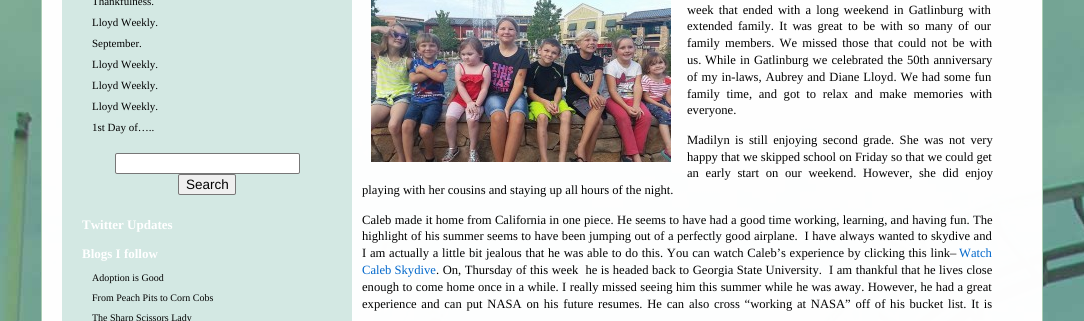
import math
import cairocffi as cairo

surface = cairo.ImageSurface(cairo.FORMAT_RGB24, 1084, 321)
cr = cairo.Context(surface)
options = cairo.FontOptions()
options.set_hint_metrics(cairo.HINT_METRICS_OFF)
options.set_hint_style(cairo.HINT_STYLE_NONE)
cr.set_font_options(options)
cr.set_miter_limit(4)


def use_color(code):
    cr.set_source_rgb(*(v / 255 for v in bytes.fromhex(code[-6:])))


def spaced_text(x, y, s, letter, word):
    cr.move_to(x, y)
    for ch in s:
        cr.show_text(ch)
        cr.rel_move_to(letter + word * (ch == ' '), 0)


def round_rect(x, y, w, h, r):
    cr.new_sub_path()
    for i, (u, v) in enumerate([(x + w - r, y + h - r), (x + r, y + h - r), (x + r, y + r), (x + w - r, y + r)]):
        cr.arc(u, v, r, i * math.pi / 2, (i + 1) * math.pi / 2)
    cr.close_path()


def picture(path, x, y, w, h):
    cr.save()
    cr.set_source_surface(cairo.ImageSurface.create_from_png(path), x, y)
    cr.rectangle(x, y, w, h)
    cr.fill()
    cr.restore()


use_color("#ffffff")
cr.paint()
picture("img1.png", 0, 0, 1084, 321)
cr.rectangle(41.5, -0.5, 1001, 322)
use_color("#aacdb4")
cr.set_line_width(1)
cr.stroke()
use_color("#d3e8e3")
cr.rectangle(62, 0, 290, 321)
cr.fill()
cr.select_font_face("Liberation Serif")
cr.set_font_size(11)
use_color("#020202")
cr.move_to(92, 5)
cr.show_text("Thankfulness.")
cr.move_to(92, 26)
cr.show_text("Lloyd Weekly.")
cr.move_to(92, 47)
cr.show_text("September.")
cr.move_to(92, 68)
cr.show_text("Lloyd Weekly.")
cr.move_to(92, 89)
cr.show_text("Lloyd Weekly.")
cr.move_to(92, 110)
cr.show_text("Lloyd Weekly.")
cr.move_to(92, 131)
cr.show_text("1st Day of…..")
use_color("#ffffff")
round_rect(115, 153, 185, 21, 2)
cr.fill()
round_rect(115.5, 153.5, 184, 20, 1.5)
cr.set_source_rgba(0.463, 0.463, 0.463, 0.99)
cr.stroke()
use_color("#efefef")
round_rect(178, 174, 58, 21, 2)
cr.fill()
round_rect(178.5, 174.5, 57, 20, 1.5)
cr.set_source_rgba(0.463, 0.463, 0.463, 0.99)
cr.stroke()
cr.select_font_face("Liberation Sans")
cr.set_font_size(13.5)
use_color("#020202")
cr.move_to(186, 189)
cr.show_text("Search")
cr.select_font_face("Liberation Serif", cairo.FONT_SLANT_NORMAL, cairo.FONT_WEIGHT_BOLD)
cr.set_font_size(13)
use_color("#ffffff")
cr.move_to(82, 229)
cr.show_text("Twitter Updates")
cr.move_to(82, 258)
cr.show_text("Blogs I follow")
cr.select_font_face("Liberation Serif")
cr.set_font_size(10)
use_color("#020202")
cr.move_to(92, 281)
cr.show_text("Adoption is Good")
cr.move_to(92, 301)
cr.show_text("From Peach Pits to Corn Cobs")
cr.move_to(92, 321)
cr.show_text("The Sharp Scissors Lady")
picture("img2.png", 371, 0, 300, 162)
cr.set_font_size(12.6)
spaced_text(687, 14, "week that ended with a long weekend in Gatlinburg with", 0, 2)
spaced_text(687, 30, "extended family. It was great to be with so many of our", 0, 2.25)
spaced_text(687, 47, "family members. We missed those that could not be with", 0, 2)
cr.move_to(687, 64)
cr.show_text("us.")
spaced_text(705, 64, "While in Gatlinburg we celebrated the 50th anniversary", 0, 1)
spaced_text(687, 81, "of my in-laws, Aubrey and Diane Lloyd. We had some fun", 0, 0.75)
spaced_text(687, 98, "family time, and got to relax and make memories with", 0, 3.5)
cr.move_to(687, 114)
cr.show_text("everyone.")
spaced_text(687, 144, "Madilyn is still enjoying second grade. She was not very", 0, 2.25)
cr.move_to(687, 161)
cr.show_text("happy that we skipped school on Friday so that we could get")
spaced_text(687, 177, "an early start on our weekend. However, she did enjoy", 0, 3.5)
cr.move_to(362, 194)
cr.show_text("playing with her cousins and staying up all hours of the night.")
spaced_text(362, 224, "Caleb made it home from California in one piece. He seems to have had a good time working, learning, and having fun. The", 0, 0.2)
spaced_text(362, 240, "highlight of his summer seems to have been jumping out of a perfectly good airplane.  I have always wanted to skydive and", 0, 0.3)
spaced_text(362, 257, "I am actually a little bit jealous that he was able to do this. You can watch Caleb’s experience by clicking this link–", 0, 0.6)
use_color("#0167cb")
cr.move_to(959, 257)
cr.show_text("Watch")
cr.move_to(362, 274)
cr.show_text("Caleb Skydive")
use_color("#020202")
spaced_text(436, 274, ". On, Thursday of this week  he is headed back to Georgia State University.  I am thankful that he lives close", 0, 0.4)
spaced_text(362, 291, "enough to come home once in a while. I really missed seeing him this summer while he was away. However, he had a great", 0, 0.3)
spaced_text(362, 308, "experience and can put NASA on his future resumes. He can also cross “working at NASA” off of his bucket list. It is", 0, 1.6)
surface.write_to_png("result.png")
